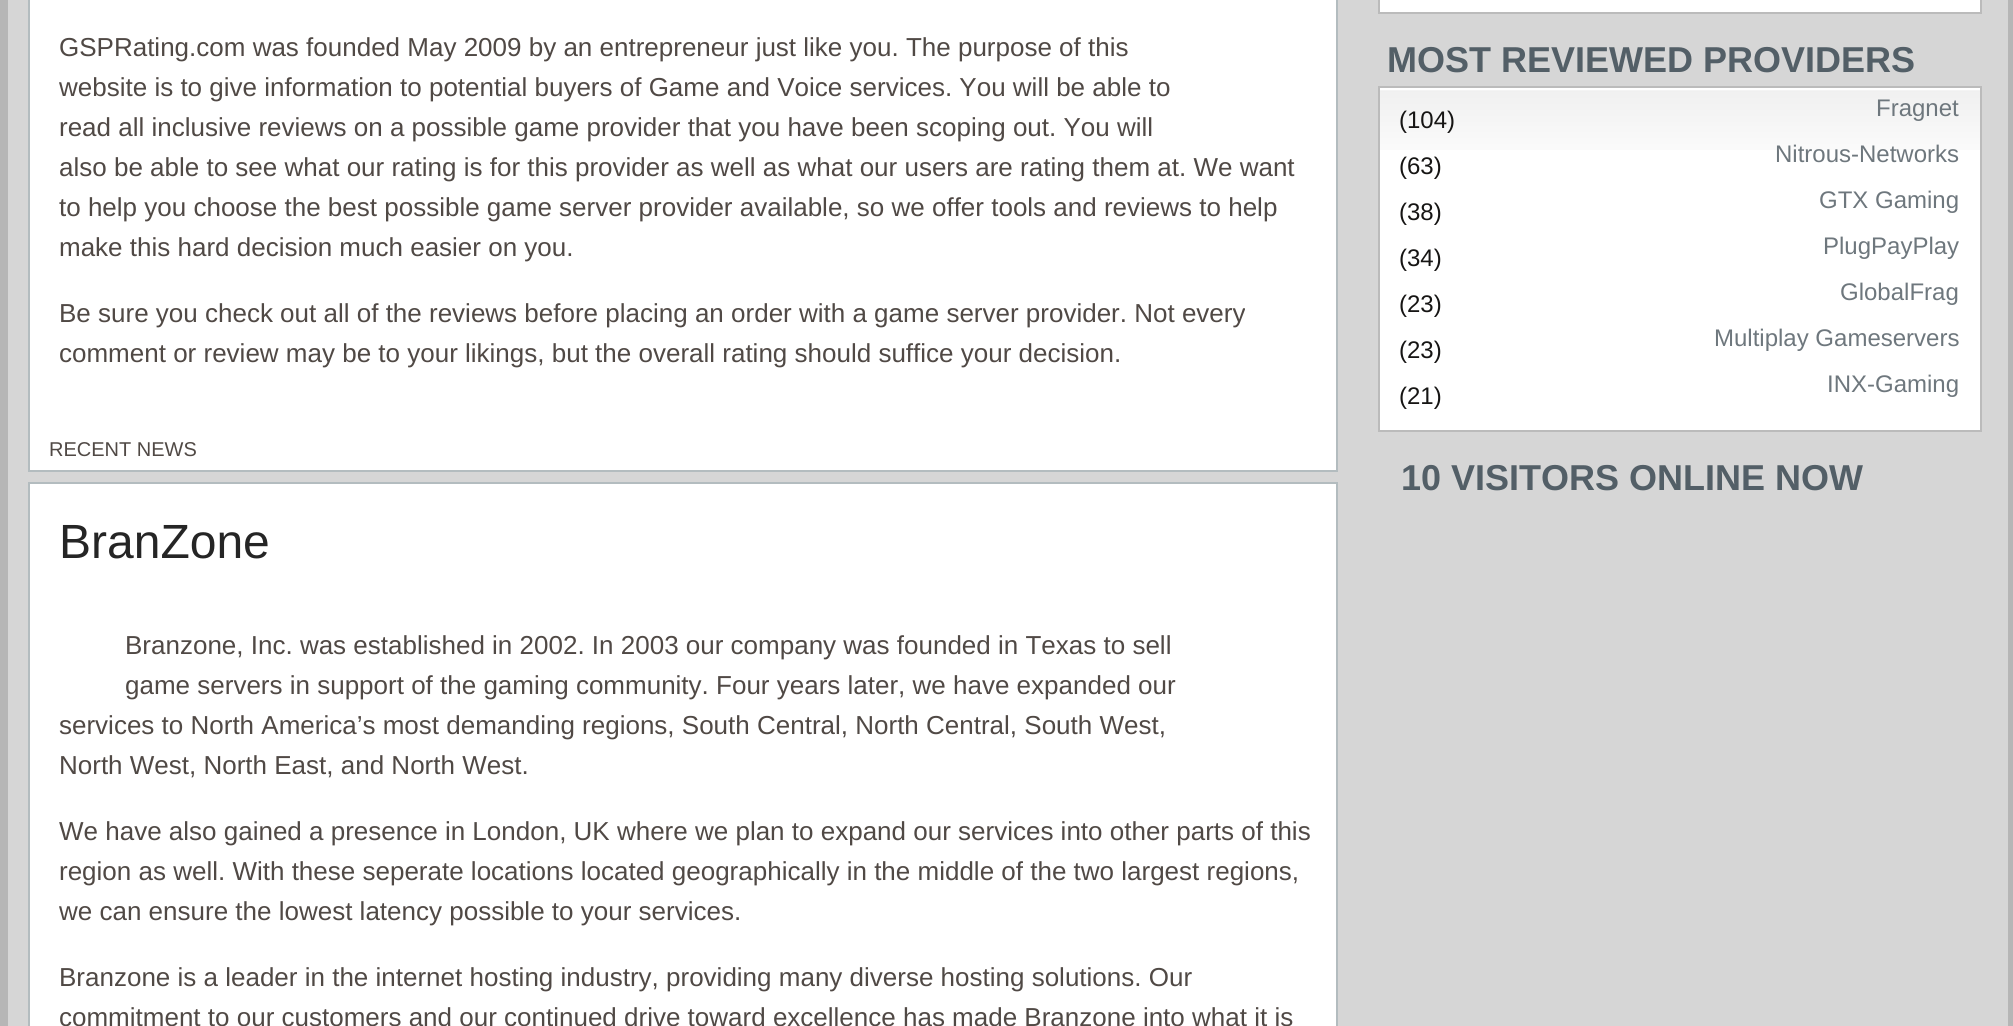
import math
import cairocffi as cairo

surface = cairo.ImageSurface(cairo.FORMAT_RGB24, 2013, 1026)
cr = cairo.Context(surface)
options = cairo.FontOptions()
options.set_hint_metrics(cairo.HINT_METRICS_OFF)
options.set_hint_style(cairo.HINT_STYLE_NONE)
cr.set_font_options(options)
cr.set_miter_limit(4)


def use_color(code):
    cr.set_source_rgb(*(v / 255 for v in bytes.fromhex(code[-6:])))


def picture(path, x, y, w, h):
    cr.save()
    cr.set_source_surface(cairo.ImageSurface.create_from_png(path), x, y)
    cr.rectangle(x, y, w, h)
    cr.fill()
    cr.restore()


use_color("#b6b6b6")
cr.paint()
use_color("#d6d6d6")
cr.rectangle(8, 0, 2000, 1026)
cr.fill()
use_color("#ffffff")
cr.rectangle(29, -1, 1308, 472)
cr.fill_preserve()
use_color("#b3bcbf")
cr.stroke()
cr.select_font_face("Liberation Sans")
cr.set_font_size(26)
use_color("#504945")
cr.move_to(59, 56)
cr.show_text("GSPRating.com was founded May 2009 by an entrepreneur just like you. The purpose of this")
cr.move_to(59, 96)
cr.show_text("website is to give information to potential buyers of Game and Voice services. You will be able to")
cr.move_to(59, 136)
cr.show_text("read all inclusive reviews on a possible game provider that you have been scoping out. You will")
cr.move_to(59, 176)
cr.show_text("also be able to see what our rating is for this provider as well as what our users are rating them at. We want")
cr.move_to(59, 216)
cr.show_text("to help you choose the best possible game server provider available, so we offer tools and reviews to help")
cr.move_to(59, 256)
cr.show_text("make this hard decision much easier on you.")
cr.move_to(59, 322)
cr.show_text("Be sure you check out all of the reviews before placing an order with a game server provider. Not every")
cr.move_to(59, 362)
cr.show_text("comment or review may be to your likings, but the overall rating should suffice your decision.")
cr.set_font_size(20)
cr.move_to(49, 456)
cr.show_text("RECENT NEWS")
use_color("#ffffff")
cr.rectangle(29, 483, 1308, 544)
cr.fill_preserve()
use_color("#b3bcbf")
cr.stroke()
cr.set_font_size(48)
use_color("#252525")
cr.move_to(59, 558)
cr.show_text("BranZone")
cr.set_font_size(26)
use_color("#504945")
cr.move_to(125, 654)
cr.show_text("Branzone, Inc. was established in 2002. In 2003 our company was founded in Texas to sell")
cr.move_to(125, 694)
cr.show_text("game servers in support of the gaming community. Four years later, we have expanded our")
cr.move_to(59, 734)
cr.show_text("services to North America’s most demanding regions, South Central, North Central, South West,")
cr.move_to(59, 774)
cr.show_text("North West, North East, and North West.")
cr.move_to(59, 840)
cr.show_text("We have also gained a presence in London, UK where we plan to expand our services into other parts of this")
cr.move_to(59, 880)
cr.show_text("region as well. With these seperate locations located geographically in the middle of the two largest regions,")
cr.move_to(59, 920)
cr.show_text("we can ensure the lowest latency possible to your services.")
cr.move_to(59, 986)
cr.show_text("Branzone is a leader in the internet hosting industry, providing many diverse hosting solutions. Our")
cr.move_to(59, 1026)
cr.show_text("commitment to our customers and our continued drive toward excellence has made Branzone into what it is")
use_color("#ffffff")
cr.rectangle(1379, -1, 602, 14)
cr.fill_preserve()
use_color("#bbbbbb")
cr.stroke()
cr.select_font_face("Liberation Sans", cairo.FONT_SLANT_NORMAL, cairo.FONT_WEIGHT_BOLD)
cr.set_font_size(36)
use_color("#535f67")
cr.move_to(1387, 72)
cr.show_text("MOST REVIEWED PROVIDERS")
use_color("#ffffff")
cr.rectangle(1380, 88, 600, 342)
cr.fill()
picture("img1.png", 1380, 90, 600, 60)
cr.rectangle(1379, 87, 602, 344)
use_color("#bbbbbb")
cr.stroke()
cr.select_font_face("Liberation Sans")
cr.set_font_size(24)
use_color("#161514")
cr.move_to(1399, 128)
cr.show_text("(104)")
use_color("#6e777d")
cr.move_to(1876, 116)
cr.show_text("Fragnet")
cr.move_to(1775, 162)
cr.show_text("Nitrous-Networks")
use_color("#161514")
cr.move_to(1399, 174)
cr.show_text("(63)")
cr.move_to(1399, 220)
cr.show_text("(38)")
use_color("#6e777d")
cr.move_to(1819, 208)
cr.show_text("GTX Gaming")
use_color("#161514")
cr.move_to(1399, 266)
cr.show_text("(34)")
use_color("#6e777d")
cr.move_to(1823, 254)
cr.show_text("PlugPayPlay")
use_color("#161514")
cr.move_to(1399, 312)
cr.show_text("(23)")
use_color("#6e777d")
cr.move_to(1840, 300)
cr.show_text("GlobalFrag")
use_color("#161514")
cr.move_to(1399, 358)
cr.show_text("(23)")
use_color("#6e777d")
cr.move_to(1714, 346)
cr.show_text("Multiplay Gameservers")
use_color("#161514")
cr.move_to(1399, 404)
cr.show_text("(21)")
use_color("#6e777d")
cr.move_to(1827, 392)
cr.show_text("INX-Gaming")
cr.select_font_face("Liberation Sans", cairo.FONT_SLANT_NORMAL, cairo.FONT_WEIGHT_BOLD)
cr.set_font_size(36)
use_color("#535f67")
cr.move_to(1401, 490)
cr.show_text("10 VISITORS ONLINE NOW")
surface.write_to_png("result.png")
